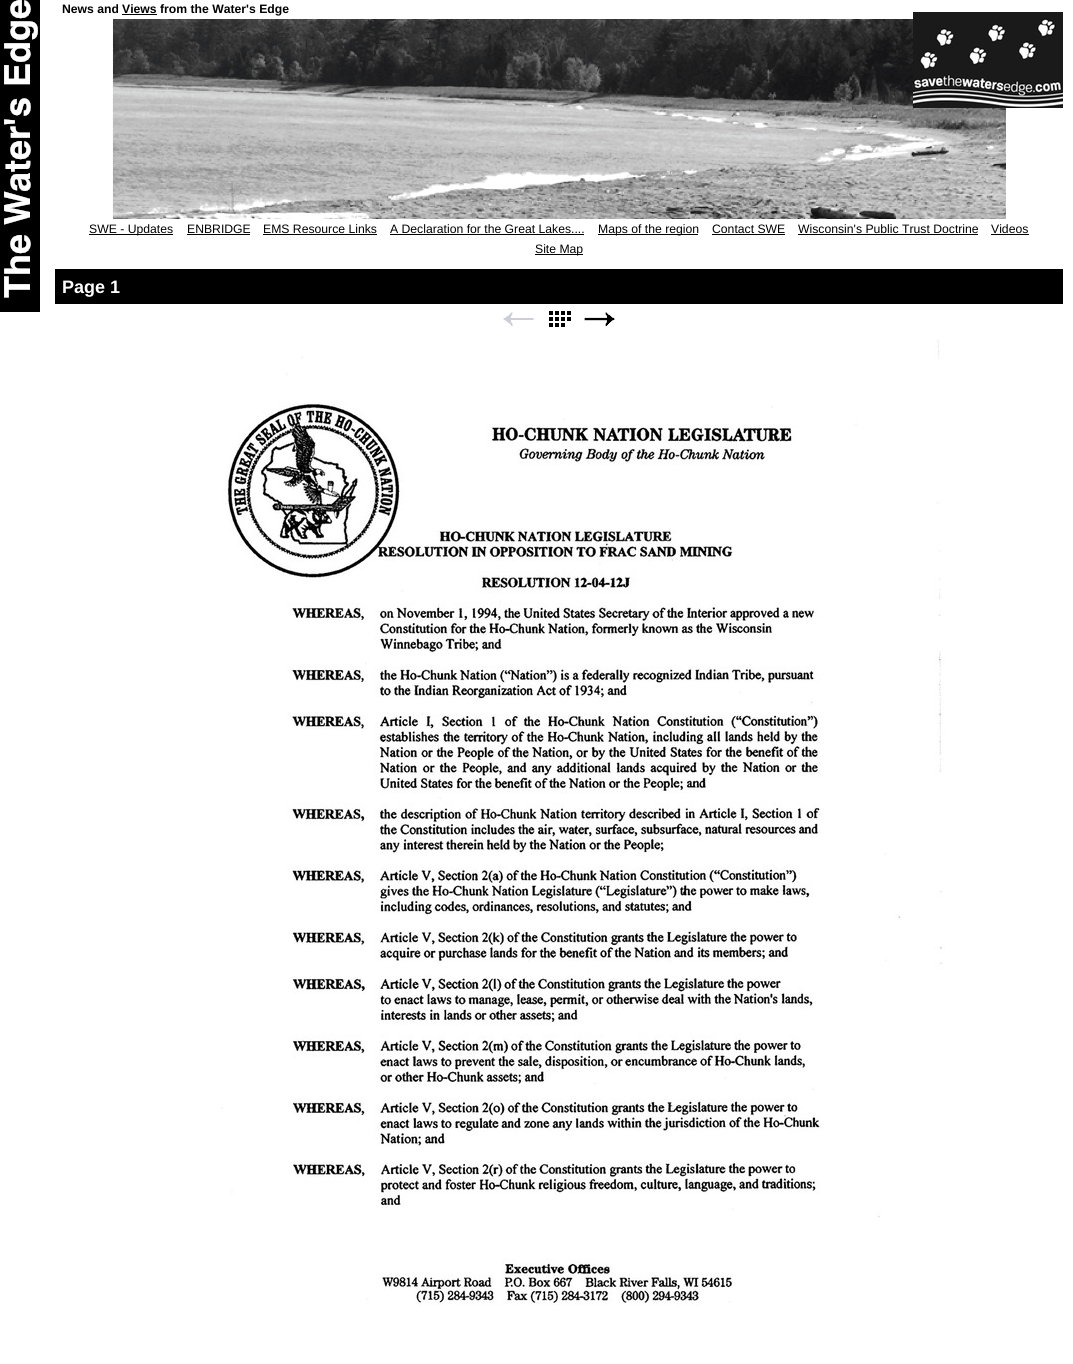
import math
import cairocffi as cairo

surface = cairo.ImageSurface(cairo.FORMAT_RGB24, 1073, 1364)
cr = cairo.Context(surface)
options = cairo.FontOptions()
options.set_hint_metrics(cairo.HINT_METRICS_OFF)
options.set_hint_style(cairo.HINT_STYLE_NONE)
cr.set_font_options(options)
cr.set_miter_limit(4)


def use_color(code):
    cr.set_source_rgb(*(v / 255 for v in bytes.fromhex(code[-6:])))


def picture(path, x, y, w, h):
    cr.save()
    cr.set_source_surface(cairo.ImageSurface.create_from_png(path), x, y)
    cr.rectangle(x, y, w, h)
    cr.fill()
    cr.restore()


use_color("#ffffff")
cr.paint()
picture("img1.png", 112, 19, 894, 200)
picture("img2.png", 0, 0, 40, 312)
cr.select_font_face("Liberation Sans", cairo.FONT_SLANT_NORMAL, cairo.FONT_WEIGHT_BOLD)
cr.set_font_size(12.2)
use_color("#020000")
cr.move_to(62, 13)
cr.show_text("News and")
cr.move_to(122, 13)
cr.show_text("Views")
use_color("#000000")
cr.rectangle(122, 14, 35, 1)
cr.fill()
use_color("#020000")
cr.move_to(160, 13)
cr.show_text("from the Water's Edge")
picture("img3.png", 913, 12, 150, 96)
use_color("#000000")
cr.rectangle(89, 234, 84, 1)
cr.fill()
cr.select_font_face("Liberation Sans")
use_color("#020000")
cr.move_to(89, 233)
cr.show_text("SWE - Updates")
cr.move_to(187, 233)
cr.show_text("ENBRIDGE")
use_color("#000000")
cr.rectangle(187, 234, 63, 1)
cr.fill()
use_color("#020000")
cr.move_to(263, 233)
cr.show_text("EMS Resource Links")
use_color("#000000")
cr.rectangle(263, 234, 114, 1)
cr.fill()
use_color("#020000")
cr.move_to(390, 233)
cr.show_text("A Declaration for the Great Lakes....")
use_color("#000000")
cr.rectangle(390, 234, 194, 1)
cr.fill()
cr.rectangle(598, 234, 100, 1)
cr.fill()
use_color("#020000")
cr.move_to(598, 233)
cr.show_text("Maps of the region")
cr.move_to(712, 233)
cr.show_text("Contact SWE")
use_color("#000000")
cr.rectangle(712, 234, 73, 1)
cr.fill()
use_color("#020000")
cr.move_to(798, 233)
cr.show_text("Wisconsin's Public Trust Doctrine")
use_color("#000000")
cr.rectangle(798, 234, 180, 1)
cr.fill()
use_color("#020000")
cr.move_to(991, 233)
cr.show_text("Videos")
use_color("#000000")
cr.rectangle(991, 234, 38, 1)
cr.fill()
cr.rectangle(535, 254, 48, 1)
cr.fill()
use_color("#020000")
cr.move_to(535, 253)
cr.show_text("Site Map")
use_color("#000000")
cr.rectangle(55, 269, 1008, 35)
cr.fill()
cr.select_font_face("Liberation Sans", cairo.FONT_SLANT_NORMAL, cairo.FONT_WEIGHT_BOLD)
cr.set_font_size(18)
use_color("#ffffff")
cr.move_to(62, 293)
cr.show_text("Page 1")
picture("img4.png", 503, 312, 31, 14)
picture("img5.png", 549, 311, 22, 16)
picture("img6.png", 584, 312, 31, 14)
picture("img7.png", 221, 339, 724, 967)
surface.write_to_png("result.png")
